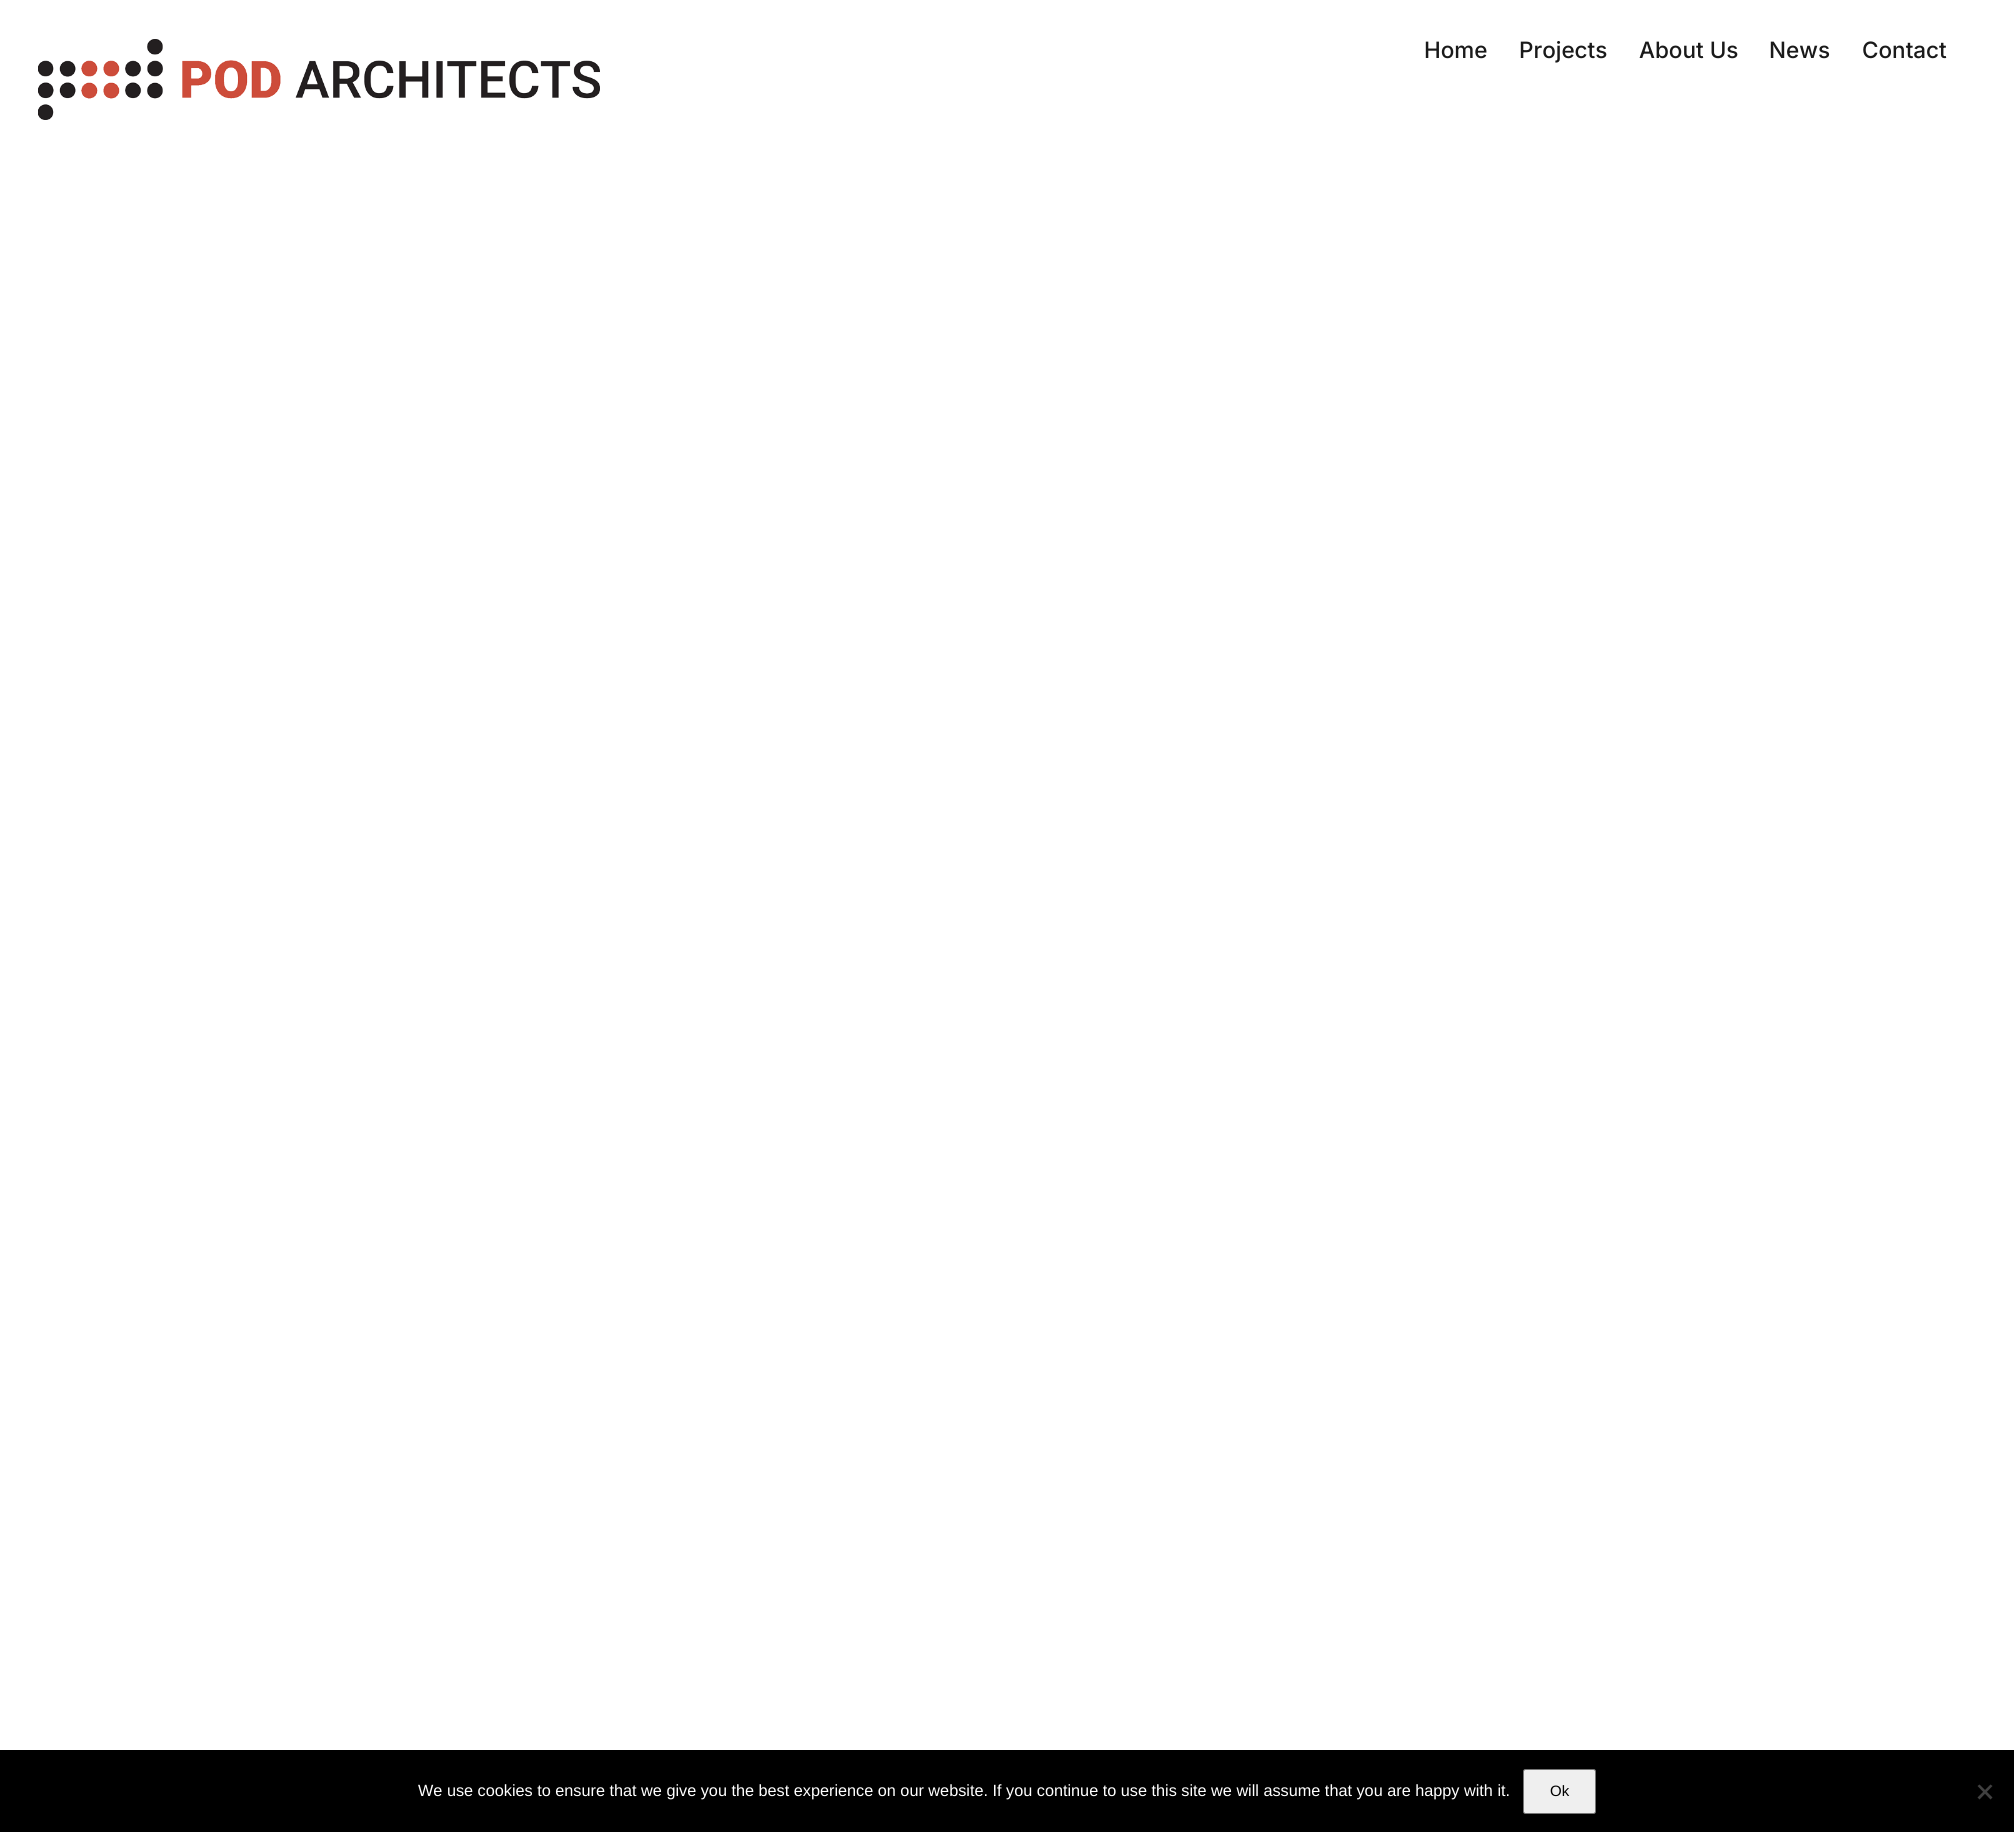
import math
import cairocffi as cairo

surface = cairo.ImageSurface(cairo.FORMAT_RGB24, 2014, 1832)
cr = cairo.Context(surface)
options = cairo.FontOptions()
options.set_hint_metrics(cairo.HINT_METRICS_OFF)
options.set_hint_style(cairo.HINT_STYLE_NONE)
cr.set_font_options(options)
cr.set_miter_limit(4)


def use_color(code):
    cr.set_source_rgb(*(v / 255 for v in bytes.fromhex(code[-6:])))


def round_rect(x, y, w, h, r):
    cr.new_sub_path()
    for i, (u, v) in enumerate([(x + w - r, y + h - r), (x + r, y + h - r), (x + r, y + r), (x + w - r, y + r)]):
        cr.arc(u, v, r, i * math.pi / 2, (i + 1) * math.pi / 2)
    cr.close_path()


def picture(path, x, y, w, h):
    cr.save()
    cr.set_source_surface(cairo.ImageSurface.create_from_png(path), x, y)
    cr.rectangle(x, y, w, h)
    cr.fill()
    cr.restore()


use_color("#ffffff")
cr.paint()
picture("img1.png", 38, 39, 562, 81)
cr.select_font_face("Inter Medium")
cr.set_font_size(22.5)
use_color("#1a1a1a")
cr.move_to(1424, 58)
cr.show_text("Home")
cr.move_to(1519, 58)
cr.show_text("Projects")
cr.move_to(1639, 58)
cr.show_text("About Us")
cr.move_to(1769, 58)
cr.show_text("News")
cr.move_to(1862, 58)
cr.show_text("Contact")
use_color("#000000")
cr.rectangle(0, 1750, 2014, 82)
cr.fill()
cr.select_font_face("Liberation Sans")
cr.set_font_size(16.25)
use_color("#ffffff")
cr.move_to(418, 1796)
cr.show_text("We use cookies to ensure that we give you the best experience on our website. If you continue to use this site we will assume that you are happy with it.")
use_color("#efefef")
round_rect(1523.5, 1769.5, 72, 44, 2)
cr.fill_preserve()
use_color("#767676")
cr.set_line_width(1)
cr.stroke()
cr.set_font_size(15)
use_color("#000000")
cr.move_to(1550, 1796)
cr.show_text("Ok")
use_color("#404040")
cr.new_path()
cr.move_to(1990.5, 1784.5)
cr.line_to(1992.5, 1786)
cr.line_to(1979.5, 1799.5)
cr.line_to(1977.5, 1797.5)
cr.close_path()
cr.fill()
cr.new_path()
cr.move_to(1977.5, 1786)
cr.line_to(1979.5, 1784.5)
cr.line_to(1992.5, 1797.5)
cr.line_to(1990.5, 1799.5)
cr.close_path()
cr.fill()
surface.write_to_png("result.png")
